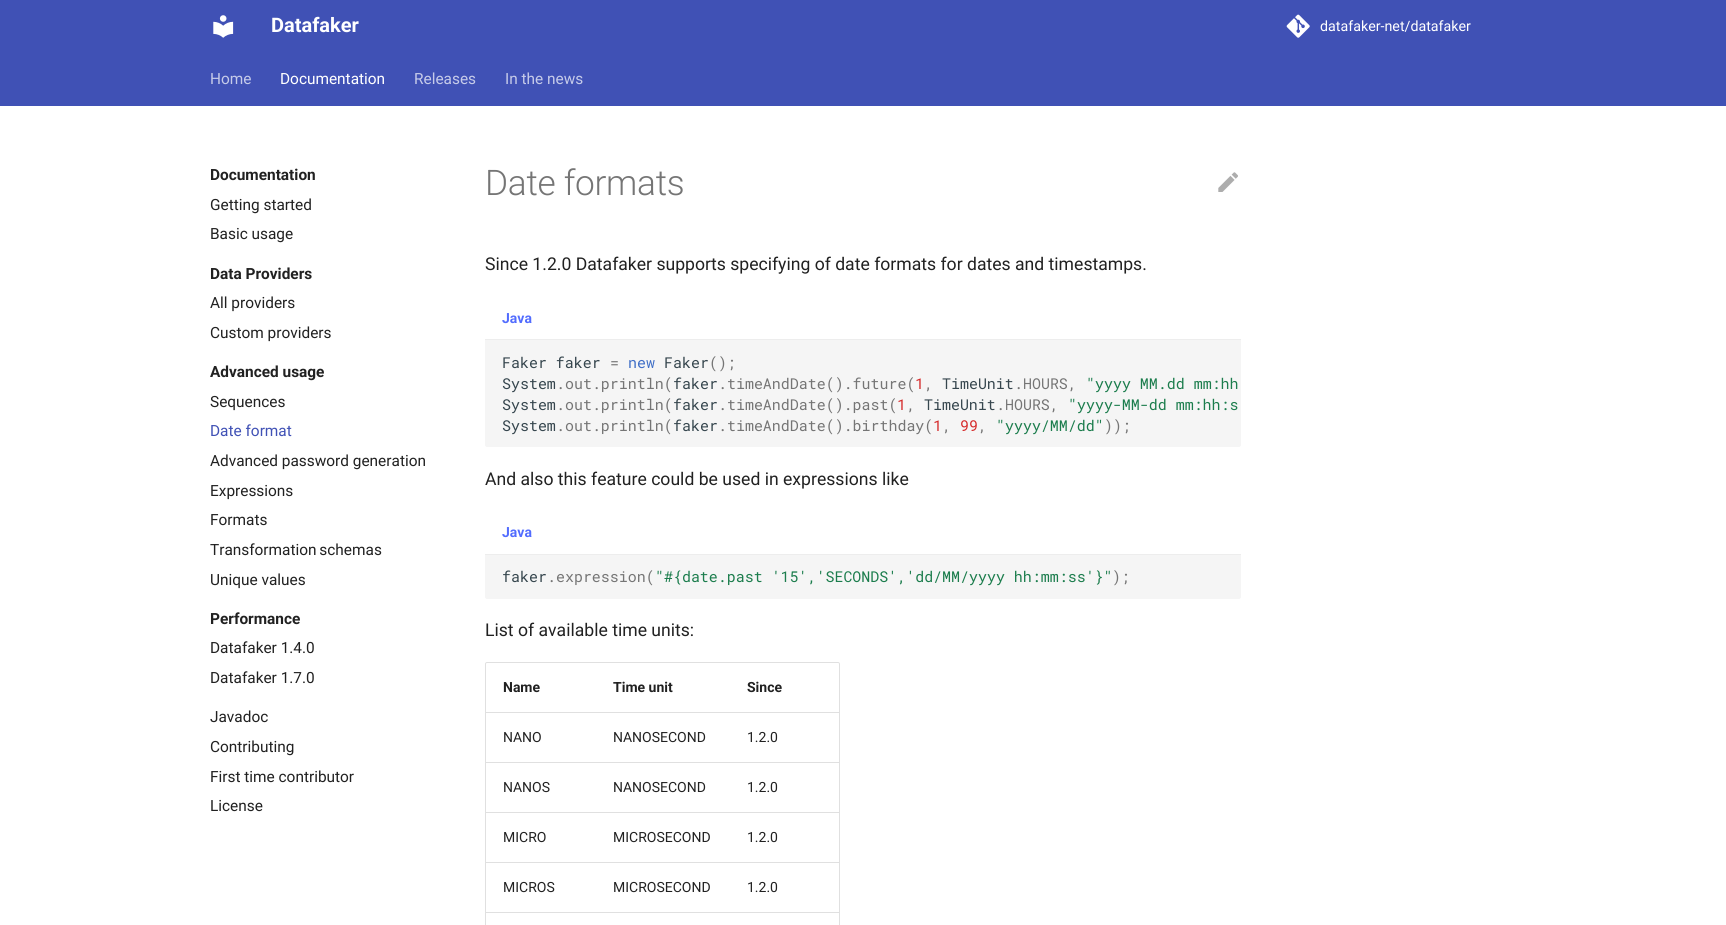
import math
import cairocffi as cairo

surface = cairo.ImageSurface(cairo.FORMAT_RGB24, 1726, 925)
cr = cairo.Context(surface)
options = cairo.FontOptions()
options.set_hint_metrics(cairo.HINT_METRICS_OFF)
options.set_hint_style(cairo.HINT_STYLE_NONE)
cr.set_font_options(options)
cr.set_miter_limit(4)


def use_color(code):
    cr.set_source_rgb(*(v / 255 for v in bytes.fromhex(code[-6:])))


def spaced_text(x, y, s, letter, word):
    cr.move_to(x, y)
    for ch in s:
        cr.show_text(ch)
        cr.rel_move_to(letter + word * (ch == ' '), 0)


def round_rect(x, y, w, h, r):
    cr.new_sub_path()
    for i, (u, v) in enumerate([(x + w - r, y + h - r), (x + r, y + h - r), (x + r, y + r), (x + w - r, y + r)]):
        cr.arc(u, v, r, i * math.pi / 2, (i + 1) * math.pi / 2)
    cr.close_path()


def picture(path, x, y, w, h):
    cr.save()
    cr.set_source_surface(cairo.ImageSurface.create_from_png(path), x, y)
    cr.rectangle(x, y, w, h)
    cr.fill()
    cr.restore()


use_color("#ffffff")
cr.paint()
use_color("#4051b5")
cr.rectangle(0, 0, 1726, 106)
cr.fill()
picture("img1.png", 213, 15, 21, 23)
cr.select_font_face("Roboto", cairo.FONT_SLANT_NORMAL, cairo.FONT_WEIGHT_BOLD)
cr.set_font_size(20)
use_color("#ffffff")
cr.move_to(271, 32)
cr.show_text("Datafaker")
picture("img2.png", 1286, 14, 24, 24)
cr.select_font_face("Roboto")
cr.set_font_size(14.25)
cr.move_to(1320, 31)
cr.show_text("datafaker-net/datafaker")
cr.set_font_size(15.4)
use_color("#c6cbe9")
cr.move_to(210, 84)
cr.show_text("Home")
use_color("#ffffff")
cr.move_to(280, 84)
cr.show_text("Documentation")
use_color("#c6cbe9")
cr.move_to(414, 84)
cr.show_text("Releases")
cr.move_to(505, 84)
cr.show_text("In the news")
cr.select_font_face("Roboto", cairo.FONT_SLANT_NORMAL, cairo.FONT_WEIGHT_BOLD)
use_color("#212121")
cr.move_to(210, 180)
cr.show_text("Documentation")
cr.select_font_face("Roboto")
cr.move_to(210, 210)
cr.show_text("Getting started")
cr.move_to(210, 239)
cr.show_text("Basic usage")
cr.select_font_face("Roboto", cairo.FONT_SLANT_NORMAL, cairo.FONT_WEIGHT_BOLD)
cr.move_to(210, 279)
cr.show_text("Data Providers")
cr.select_font_face("Roboto")
cr.move_to(210, 308)
cr.show_text("All providers")
cr.move_to(210, 338)
cr.show_text("Custom providers")
cr.select_font_face("Roboto", cairo.FONT_SLANT_NORMAL, cairo.FONT_WEIGHT_BOLD)
cr.move_to(210, 377)
cr.show_text("Advanced usage")
cr.select_font_face("Roboto")
cr.move_to(210, 407)
cr.show_text("Sequences")
use_color("#4051b5")
cr.move_to(210, 436)
cr.show_text("Date format")
use_color("#212121")
cr.move_to(210, 466)
cr.show_text("Advanced password generation")
cr.move_to(210, 496)
cr.show_text("Expressions")
cr.move_to(210, 525)
cr.show_text("Formats")
spaced_text(210, 555, "Transformation schemas", 0, -1)
cr.move_to(210, 585)
cr.show_text("Unique values")
cr.select_font_face("Roboto", cairo.FONT_SLANT_NORMAL, cairo.FONT_WEIGHT_BOLD)
cr.move_to(210, 624)
cr.show_text("Performance")
cr.select_font_face("Roboto")
cr.move_to(210, 653)
cr.show_text("Datafaker 1.4.0")
cr.move_to(210, 683)
cr.show_text("Datafaker 1.7.0")
cr.move_to(210, 722)
cr.show_text("Javadoc")
cr.move_to(210, 752)
cr.show_text("Contributing")
cr.move_to(210, 782)
cr.show_text("First time contributor")
cr.move_to(210, 811)
cr.show_text("License")
cr.select_font_face("Roboto Light")
cr.set_font_size(35.25)
use_color("#757575")
spaced_text(485, 195, "Date formats", -0.3, 0)
picture("img3.png", 1218, 172, 20, 20)
cr.select_font_face("Roboto")
cr.set_font_size(17.6)
use_color("#212121")
cr.move_to(485, 270)
cr.show_text("Since 1.2.0 Datafaker supports specifying of date formats for dates and timestamps.")
use_color("#ededed")
cr.rectangle(485, 339, 756, 1)
cr.fill()
cr.select_font_face("Roboto", cairo.FONT_SLANT_NORMAL, cairo.FONT_WEIGHT_BOLD)
cr.set_font_size(14)
use_color("#526cfe")
cr.move_to(502, 323)
cr.show_text("Java")
use_color("#f5f5f5")
cr.new_path()
cr.move_to(485, 340)
cr.line_to(1241, 340)
cr.line_to(1241, 445)
cr.curve_to(1241, 446, 1240, 447, 1239, 447)
cr.line_to(487, 447)
cr.curve_to(486, 447, 485, 446, 485, 445)
cr.close_path()
cr.fill()
cr.select_font_face("Roboto Mono")
cr.set_font_size(14.95)
use_color("#36464e")
cr.move_to(502, 368)
cr.show_text("Faker faker")
use_color("#757575")
cr.move_to(610, 368)
cr.show_text("=")
use_color("#3f6ec6")
cr.move_to(628, 368)
cr.show_text("new")
use_color("#36464e")
cr.move_to(664, 368)
cr.show_text("Faker")
use_color("#757575")
cr.move_to(709, 368)
cr.show_text("();")
use_color("#36464e")
cr.move_to(502, 389)
cr.show_text("System")
use_color("#757575")
cr.move_to(556, 389)
cr.show_text(".out.println(")
use_color("#36464e")
cr.move_to(673, 389)
cr.show_text("faker")
use_color("#757575")
cr.move_to(718, 389)
cr.show_text(".timeAndDate().future( ,")
use_color("#1c7d4d")
cr.move_to(1086, 389)
cr.show_text("\"yyyy MM.dd mm:hh")
use_color("#d52a2a")
cr.move_to(915, 389)
cr.show_text("1")
use_color("#36464e")
cr.move_to(942, 389)
cr.show_text("TimeUnit")
use_color("#757575")
cr.move_to(1014, 389)
cr.show_text(".HOURS,")
use_color("#36464e")
cr.move_to(502, 410)
cr.show_text("System")
use_color("#757575")
cr.move_to(556, 410)
cr.show_text(".out.println(")
use_color("#36464e")
cr.move_to(673, 410)
cr.show_text("faker")
use_color("#757575")
cr.move_to(718, 410)
cr.show_text(".timeAndDate().past( ,")
use_color("#1c7d4d")
cr.move_to(1068, 410)
cr.show_text("\"yyyy-MM-dd mm:hh:s")
use_color("#d52a2a")
cr.move_to(897, 410)
cr.show_text("1")
use_color("#36464e")
cr.move_to(924, 410)
cr.show_text("TimeUnit")
use_color("#757575")
cr.move_to(996, 410)
cr.show_text(".HOURS,")
use_color("#36464e")
cr.move_to(502, 431)
cr.show_text("System")
use_color("#757575")
cr.move_to(556, 431)
cr.show_text(".out.println(")
use_color("#36464e")
cr.move_to(673, 431)
cr.show_text("faker")
use_color("#757575")
cr.move_to(718, 431)
cr.show_text(".timeAndDate().birthday( ,")
use_color("#1c7d4d")
cr.move_to(996, 431)
cr.show_text("\"yyyy/MM/dd\"")
use_color("#757575")
cr.move_to(1104, 431)
cr.show_text("));")
use_color("#d52a2a")
cr.move_to(933, 431)
cr.show_text("1")
cr.move_to(960, 431)
cr.show_text("99")
use_color("#757575")
cr.move_to(978, 431)
cr.show_text(",")
cr.select_font_face("Roboto")
cr.set_font_size(17.6)
use_color("#212121")
cr.move_to(485, 485)
cr.show_text("And also this feature could be used in expressions like")
use_color("#ededed")
cr.rectangle(485, 554, 756, 1)
cr.fill()
cr.select_font_face("Roboto", cairo.FONT_SLANT_NORMAL, cairo.FONT_WEIGHT_BOLD)
cr.set_font_size(14)
use_color("#526cfe")
cr.move_to(502, 537)
cr.show_text("Java")
use_color("#f5f5f5")
cr.new_path()
cr.move_to(485, 555)
cr.line_to(1241, 555)
cr.line_to(1241, 597)
cr.curve_to(1241, 598, 1240, 599, 1239, 599)
cr.line_to(487, 599)
cr.curve_to(486, 599, 485, 598, 485, 597)
cr.close_path()
cr.fill()
cr.select_font_face("Roboto Mono")
cr.set_font_size(14.95)
use_color("#36464e")
cr.move_to(502, 582)
cr.show_text("faker")
use_color("#757575")
cr.move_to(547, 582)
cr.show_text(".expression(")
use_color("#1c7d4d")
cr.move_to(655, 582)
cr.show_text("\"#{date.past '15','SECONDS','dd/MM/yyyy hh:mm:ss'}\"")
use_color("#757575")
cr.move_to(1112, 582)
cr.show_text(");")
cr.select_font_face("Roboto")
cr.set_font_size(17.6)
use_color("#212121")
cr.move_to(485, 636)
cr.show_text("List of available time units:")
round_rect(485.5, 662.5, 354, 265, 1.5)
use_color("#e0e0e0")
cr.set_line_width(1)
cr.stroke()
cr.select_font_face("Roboto", cairo.FONT_SLANT_NORMAL, cairo.FONT_WEIGHT_BOLD)
cr.set_font_size(14)
use_color("#212121")
cr.move_to(503, 692)
cr.show_text("Name")
cr.move_to(613, 692)
cr.show_text("Time unit")
cr.move_to(747, 692)
cr.show_text("Since")
use_color("#e0e0e0")
cr.rectangle(486, 712, 353, 1)
cr.fill()
cr.select_font_face("Roboto")
use_color("#212121")
cr.move_to(503, 742)
cr.show_text("NANO")
cr.move_to(613, 742)
cr.show_text("NANOSECOND")
cr.move_to(747, 742)
cr.show_text("1.2.0")
use_color("#e0e0e0")
cr.rectangle(486, 762, 353, 1)
cr.fill()
use_color("#212121")
cr.move_to(503, 792)
cr.show_text("NANOS")
cr.move_to(613, 792)
cr.show_text("NANOSECOND")
cr.move_to(747, 792)
cr.show_text("1.2.0")
use_color("#e0e0e0")
cr.rectangle(486, 812, 353, 1)
cr.fill()
use_color("#212121")
cr.move_to(503, 842)
cr.show_text("MICRO")
cr.move_to(613, 842)
cr.show_text("MICROSECOND")
cr.move_to(747, 842)
cr.show_text("1.2.0")
use_color("#e0e0e0")
cr.rectangle(486, 862, 353, 1)
cr.fill()
use_color("#212121")
cr.move_to(503, 892)
cr.show_text("MICROS")
cr.move_to(613, 892)
cr.show_text("MICROSECOND")
cr.move_to(747, 892)
cr.show_text("1.2.0")
use_color("#e0e0e0")
cr.rectangle(486, 912, 353, 1)
cr.fill()
surface.write_to_png("result.png")
